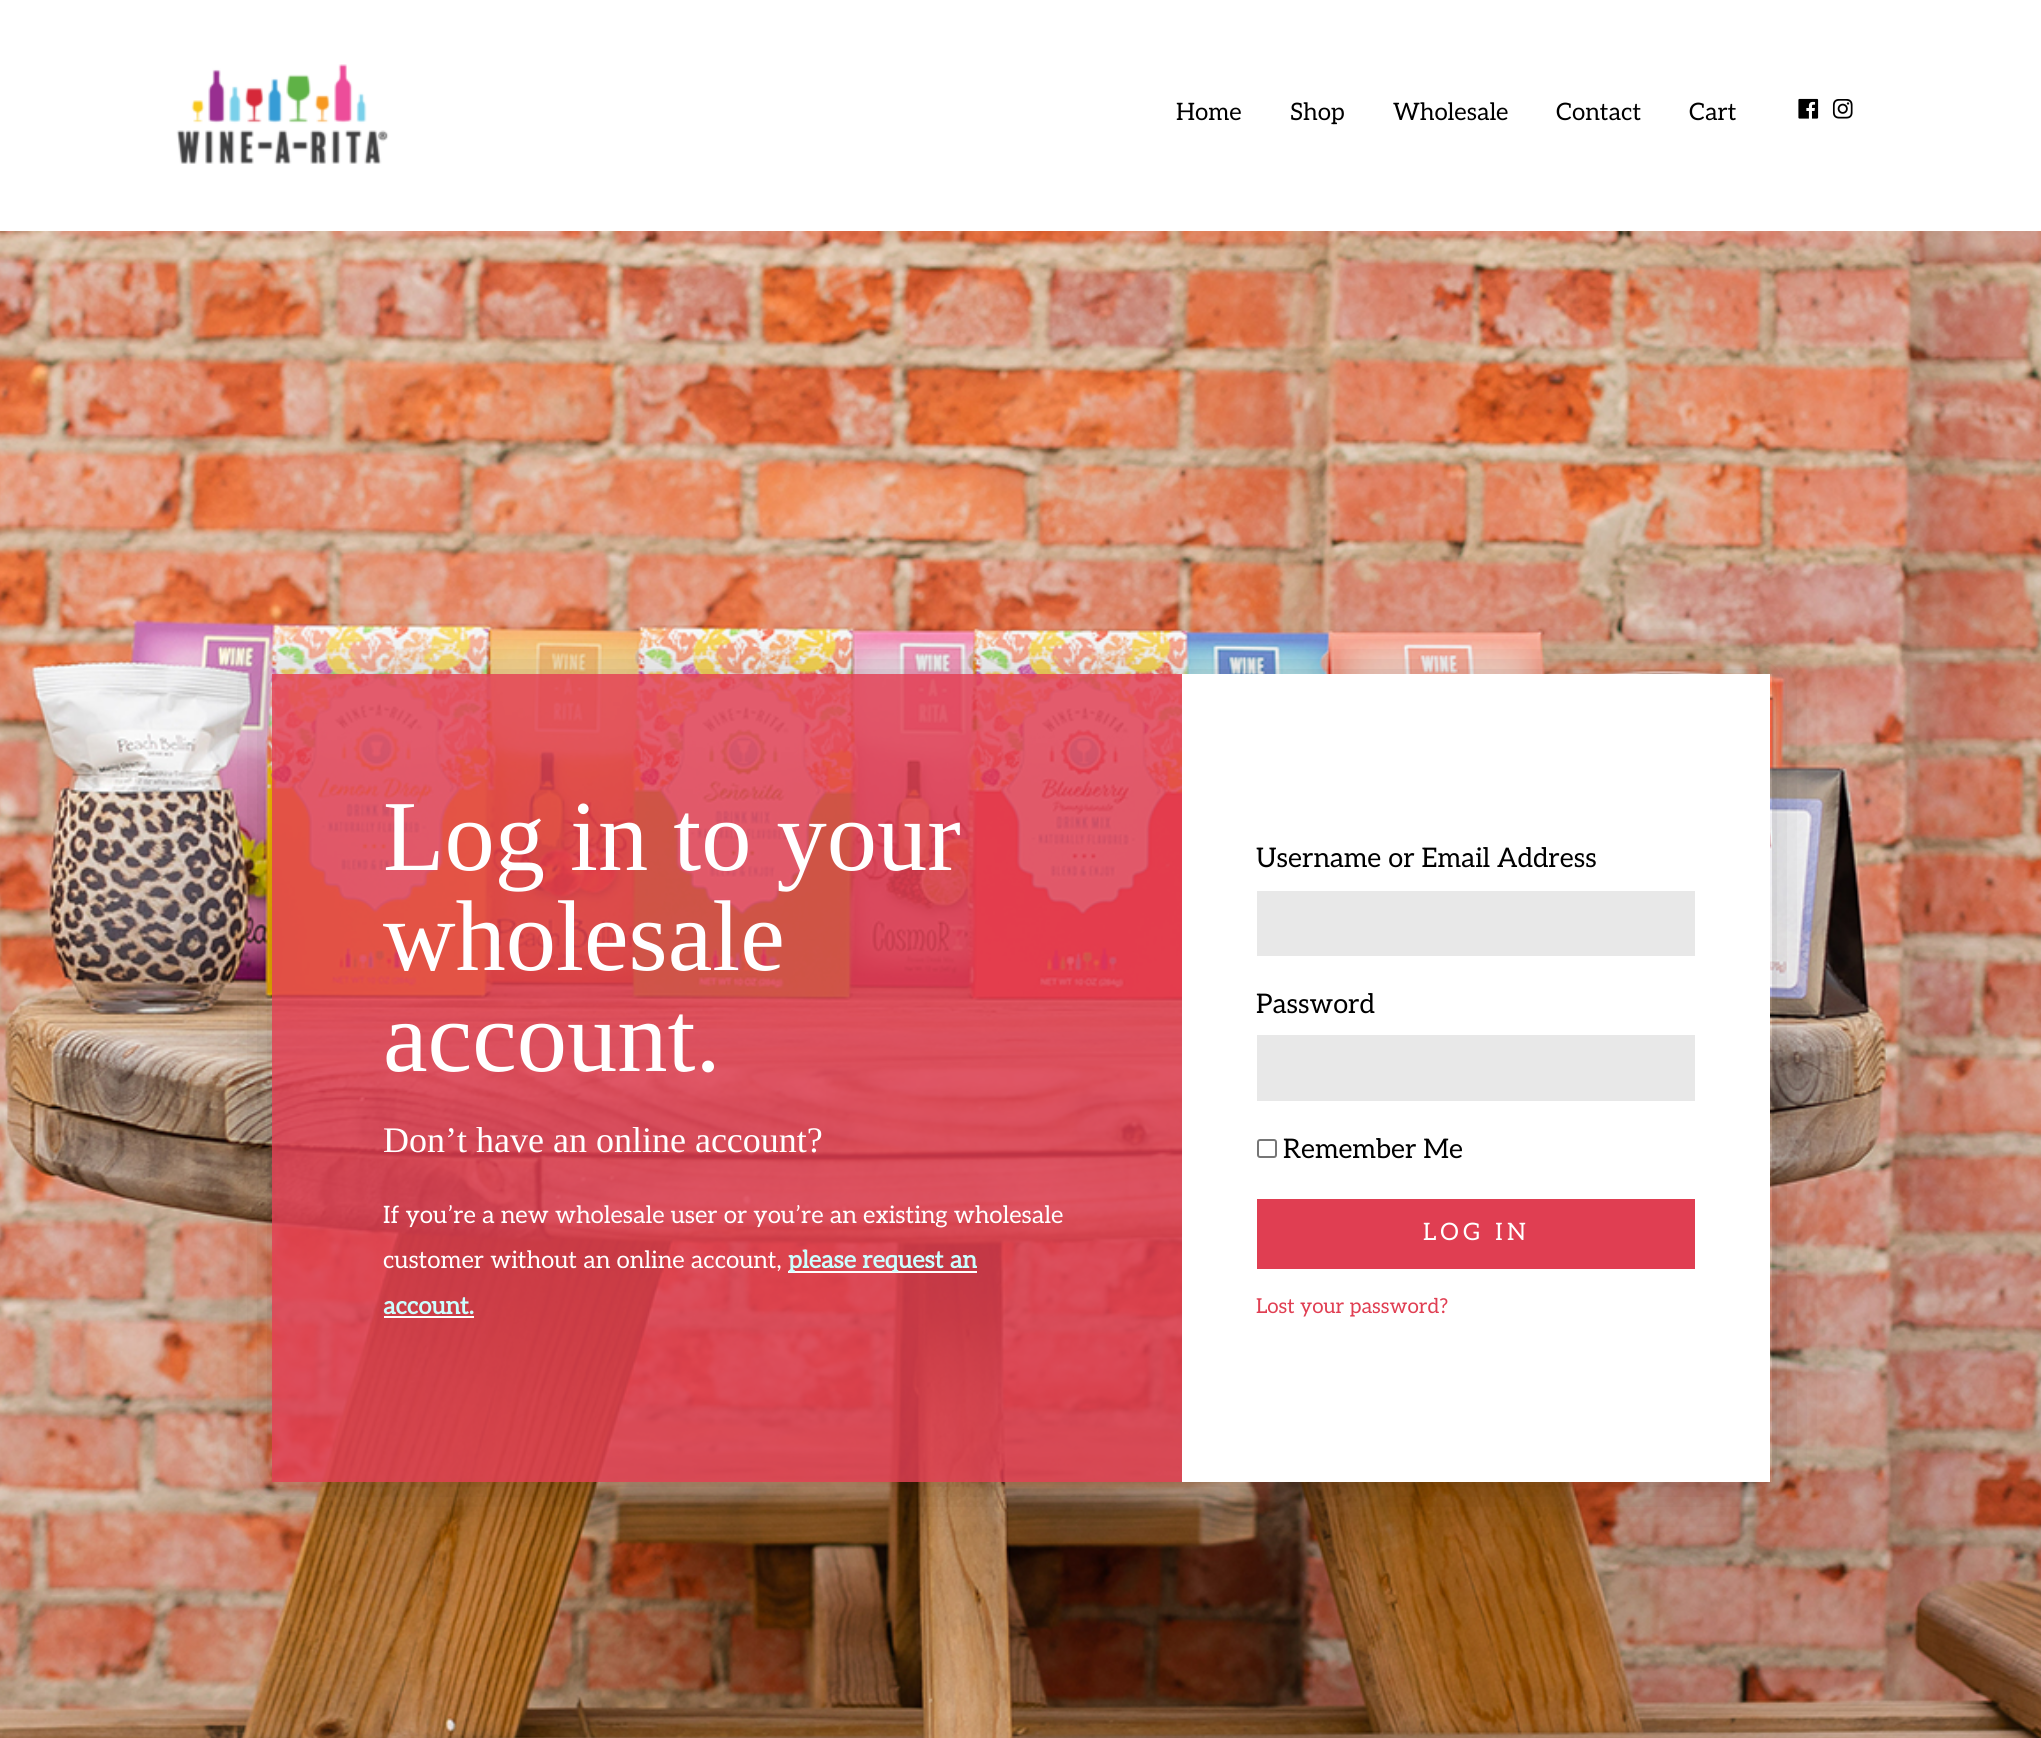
import math
import cairocffi as cairo

surface = cairo.ImageSurface(cairo.FORMAT_RGB24, 2041, 1738)
cr = cairo.Context(surface)
options = cairo.FontOptions()
options.set_hint_metrics(cairo.HINT_METRICS_OFF)
options.set_hint_style(cairo.HINT_STYLE_NONE)
cr.set_font_options(options)
cr.set_miter_limit(4)


def use_color(code):
    cr.set_source_rgb(*(v / 255 for v in bytes.fromhex(code[-6:])))


def spaced_text(x, y, s, letter, word):
    cr.move_to(x, y)
    for ch in s:
        cr.show_text(ch)
        cr.rel_move_to(letter + word * (ch == ' '), 0)


def round_rect(x, y, w, h, r):
    cr.new_sub_path()
    for i, (u, v) in enumerate([(x + w - r, y + h - r), (x + r, y + h - r), (x + r, y + r), (x + w - r, y + r)]):
        cr.arc(u, v, r, i * math.pi / 2, (i + 1) * math.pi / 2)
    cr.close_path()


def shadow(x, y, w, h, r, blur, alpha):
    cr.push_group_with_content(cairo.CONTENT_ALPHA)
    cr.set_operator(cairo.OPERATOR_SOURCE)
    for i in range(15, -16, -2):
        e = blur * i / 6
        if min(w, h) + 2 * e > 0:
            cr.set_source_rgba(0, 0, 0, alpha * math.erfc((i - 1) / 8.5) / 2)
            round_rect(x - e, y - e, w + 2 * e, h + 2 * e, max(0, min(r + e + blur * .6, min(w, h) / 2 + e)))
            cr.fill()
    cr.mask(cr.pop_group())


def picture(path, x, y, w, h):
    cr.save()
    cr.set_source_surface(cairo.ImageSurface.create_from_png(path), x, y)
    cr.rectangle(x, y, w, h)
    cr.fill()
    cr.restore()


use_color("#ffffff")
cr.paint()
picture("img1.png", 176, 64, 213, 100)
cr.select_font_face("Aleo")
cr.set_font_size(24)
use_color("#000000")
cr.move_to(1176, 120)
cr.show_text("Home")
cr.move_to(1290, 120)
cr.show_text("Shop")
cr.move_to(1393, 120)
cr.show_text("Wholesale")
cr.move_to(1556, 120)
cr.show_text("Contact")
cr.move_to(1689, 120)
cr.show_text("Cart")
picture("img2.png", 1798, 98, 21, 21)
picture("img3.png", 1832, 99, 21, 20)
picture("img4.png", 0, 231, 2041, 1507)
cr.save()
cr.set_fill_rule(cairo.FILL_RULE_EVEN_ODD)
cr.new_path()
cr.move_to(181, 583)
cr.line_to(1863, 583)
cr.line_to(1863, 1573)
cr.line_to(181, 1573)
cr.close_path()
cr.move_to(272, 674)
cr.line_to(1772, 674)
cr.line_to(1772, 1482)
cr.line_to(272, 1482)
cr.close_path()
cr.clip()
use_color("#000000")
shadow(272, 674, 1500, 808, 0, 30, 0.24)
cr.restore()
cr.set_source_rgba(0.878, 0.243, 0.322, 0.84)
cr.rectangle(272, 674, 910, 808)
cr.fill()
cr.select_font_face("Liberation Serif")
cr.set_font_size(100.5)
use_color("#ffffff")
cr.move_to(383, 870)
cr.show_text("Log in to your")
cr.move_to(383, 970)
cr.show_text("wholesale")
cr.move_to(383, 1071)
cr.show_text("account.")
cr.set_font_size(36)
cr.move_to(383, 1152)
cr.show_text("Don’t have an online account?")
cr.select_font_face("Aleo")
cr.set_font_size(24)
cr.move_to(383, 1223)
cr.show_text("If you’re a new wholesale user or you’re an existing wholesale")
cr.move_to(383, 1268)
cr.show_text("customer without an online account,")
cr.rectangle(788, 1271, 189, 2)
cr.fill()
cr.select_font_face("Aleo", cairo.FONT_SLANT_NORMAL, cairo.FONT_WEIGHT_BOLD)
use_color("#ccffff")
cr.move_to(788, 1268)
cr.show_text("please request an")
cr.move_to(383, 1314)
cr.show_text("account.")
use_color("#ffffff")
cr.rectangle(384, 1316, 90, 2)
cr.fill()
cr.rectangle(1182, 674, 588, 808)
cr.fill()
cr.select_font_face("Aleo")
cr.set_font_size(27)
use_color("#000000")
cr.move_to(1256, 867)
cr.show_text("Username or Email Address")
use_color("#e8e8e8")
cr.rectangle(1257, 891, 438, 65)
cr.fill()
use_color("#000000")
cr.move_to(1256, 1013)
cr.show_text("Password")
use_color("#e8e8e8")
cr.rectangle(1257, 1035, 438, 66)
cr.fill()
round_rect(1258, 1140, 18, 17, 2)
use_color("#767676")
cr.stroke()
use_color("#000000")
cr.move_to(1283, 1158)
cr.show_text("Remember Me")
use_color("#e03e52")
cr.rectangle(1257, 1199, 438, 70)
cr.fill()
cr.set_font_size(24)
use_color("#ffffff")
spaced_text(1423, 1240, "LOG IN", 4.25, 0)
cr.set_font_size(20.5)
use_color("#e03e52")
cr.move_to(1256, 1313)
cr.show_text("Lost your password?")
surface.write_to_png("result.png")
